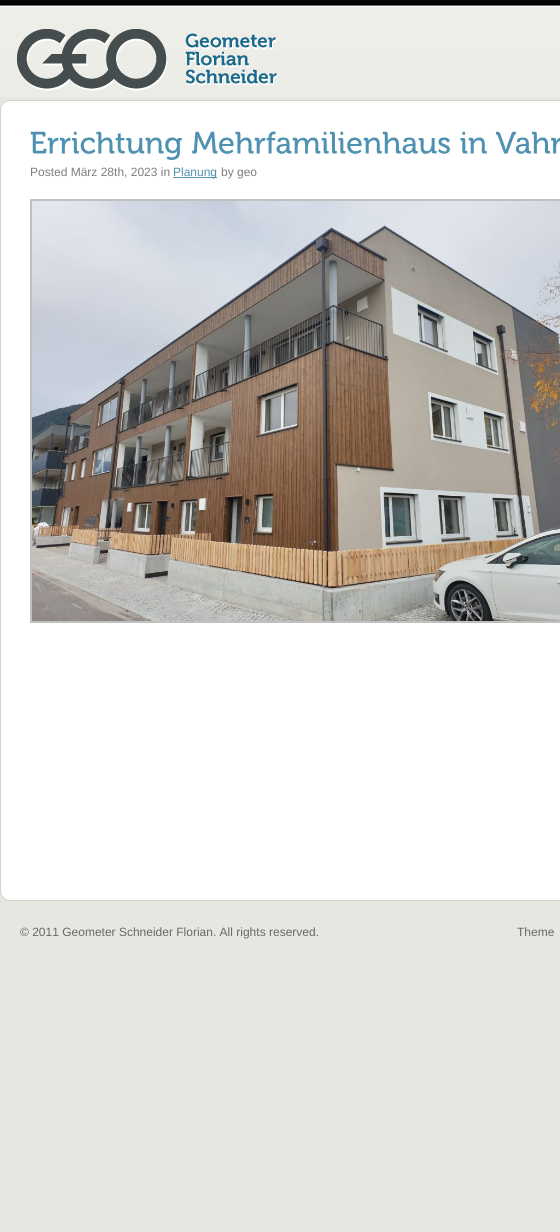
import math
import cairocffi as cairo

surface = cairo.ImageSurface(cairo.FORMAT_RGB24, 560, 1232)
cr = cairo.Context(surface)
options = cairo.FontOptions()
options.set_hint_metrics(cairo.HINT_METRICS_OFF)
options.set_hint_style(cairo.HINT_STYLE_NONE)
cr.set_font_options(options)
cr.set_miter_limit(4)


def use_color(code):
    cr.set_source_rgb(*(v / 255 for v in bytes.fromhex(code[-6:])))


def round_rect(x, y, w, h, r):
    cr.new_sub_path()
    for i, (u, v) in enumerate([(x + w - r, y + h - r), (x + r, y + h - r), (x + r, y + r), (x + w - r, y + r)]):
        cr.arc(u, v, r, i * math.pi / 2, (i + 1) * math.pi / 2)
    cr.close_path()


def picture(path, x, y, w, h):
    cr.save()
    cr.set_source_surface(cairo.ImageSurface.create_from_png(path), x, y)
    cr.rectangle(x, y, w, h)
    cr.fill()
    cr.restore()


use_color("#e7e7e2")
cr.paint()
picture("img1.png", 0, 0, 560, 97)
picture("img2.png", 17, 29, 261, 62)
use_color("#ffffff")
round_rect(0.5, 100.5, 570, 800, 9.5)
cr.fill_preserve()
use_color("#d2d2cf")
cr.set_line_width(1)
cr.stroke()
picture("img3.png", 30, 131, 152, 29)
picture("img4.png", 192, 131, 258, 23)
picture("img5.png", 460, 131, 27, 23)
picture("img6.png", 495, 131, 65, 23)
cr.select_font_face("Liberation Sans")
cr.set_font_size(12)
use_color("#7e7e7e")
cr.move_to(30, 176)
cr.show_text("Posted März 28th, 2023 in")
use_color("#4f91b0")
cr.rectangle(173, 177, 44, 1)
cr.fill()
cr.move_to(173, 176)
cr.show_text("Planung")
use_color("#7e7e7e")
cr.move_to(221, 176)
cr.show_text("by geo")
cr.rectangle(31, 200, 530, 422)
use_color("#c0c0c0")
cr.set_line_width(2)
cr.stroke()
picture("img7.png", 32, 201, 528, 420)
use_color("#696767")
cr.move_to(20, 936)
cr.show_text("© 2011 Geometer Schneider Florian. All rights reserved.")
cr.move_to(517, 936)
cr.show_text("Theme")
surface.write_to_png("result.png")
